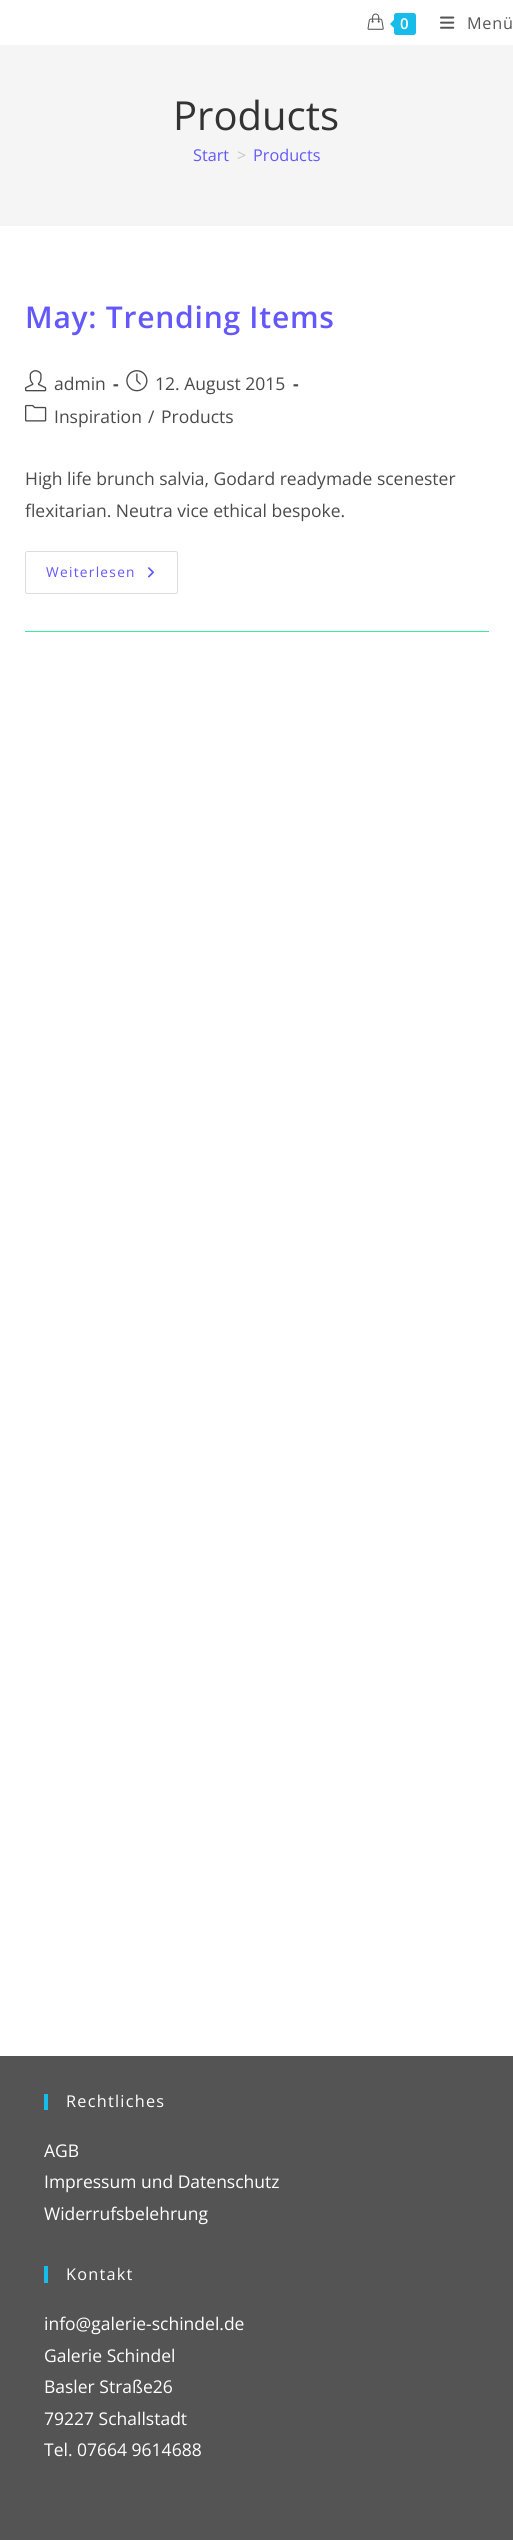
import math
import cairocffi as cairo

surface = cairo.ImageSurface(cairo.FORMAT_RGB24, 513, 2540)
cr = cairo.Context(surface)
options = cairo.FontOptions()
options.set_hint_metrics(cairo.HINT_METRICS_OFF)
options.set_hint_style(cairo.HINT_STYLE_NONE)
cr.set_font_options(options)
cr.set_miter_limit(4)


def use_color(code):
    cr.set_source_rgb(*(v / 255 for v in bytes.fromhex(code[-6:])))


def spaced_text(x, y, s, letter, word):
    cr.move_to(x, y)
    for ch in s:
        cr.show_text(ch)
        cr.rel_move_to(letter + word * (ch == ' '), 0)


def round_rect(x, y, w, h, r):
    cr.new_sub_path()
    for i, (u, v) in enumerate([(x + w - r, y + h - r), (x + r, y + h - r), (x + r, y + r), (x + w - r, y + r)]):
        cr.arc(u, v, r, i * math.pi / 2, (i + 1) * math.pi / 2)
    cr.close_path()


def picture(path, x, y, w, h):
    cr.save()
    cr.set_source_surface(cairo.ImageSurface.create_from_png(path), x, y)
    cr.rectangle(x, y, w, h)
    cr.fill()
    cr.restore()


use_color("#ffffff")
cr.paint()
picture("img1.png", 367, 13, 17, 17)
use_color("#17bcea")
round_rect(394, 13, 22, 22, 2.5)
cr.fill()
cr.new_path()
cr.move_to(396, 17.5)
cr.line_to(396, 30)
cr.line_to(390, 24)
cr.close_path()
cr.fill()
cr.select_font_face("Open Sans SemiBold")
cr.set_font_size(15)
use_color("#ffffff")
spaced_text(400, 29, "0", 0.75, 0)
picture("img2.png", 440, 16, 15, 13)
cr.select_font_face("Open Sans")
cr.set_font_size(16.25)
use_color("#555555")
spaced_text(467, 29, "Menü", 0.75, 0)
use_color("#f5f5f5")
cr.rectangle(0, 45, 513, 181)
cr.fill()
cr.set_font_size(40)
use_color("#333333")
cr.move_to(173, 130)
cr.show_text("Products")
cr.set_font_size(16.25)
use_color("#6358fc")
cr.move_to(193, 161)
cr.show_text("Start")
use_color("#c6c6c6")
cr.move_to(237, 161)
cr.show_text(">")
use_color("#6358fc")
cr.move_to(253, 161)
cr.show_text("Products")
use_color("#36ed9a")
cr.rectangle(25, 631, 464, 1)
cr.fill()
cr.select_font_face("Open Sans SemiBold")
cr.set_font_size(30)
use_color("#6358fc")
spaced_text(25, 328, "May: Trending Items", 0.75, 0)
picture("img3.png", 25, 370, 22, 22)
cr.select_font_face("Open Sans")
cr.set_font_size(17.5)
use_color("#4a4a4a")
cr.move_to(54, 390)
cr.show_text("admin")
cr.select_font_face("Open Sans", cairo.FONT_SLANT_NORMAL, cairo.FONT_WEIGHT_BOLD)
cr.move_to(113, 390)
cr.show_text("-")
picture("img4.png", 126, 370, 22, 22)
cr.select_font_face("Open Sans")
cr.move_to(155, 390)
cr.show_text("12. August 2015")
cr.select_font_face("Open Sans", cairo.FONT_SLANT_NORMAL, cairo.FONT_WEIGHT_BOLD)
cr.move_to(293, 390)
cr.show_text("-")
picture("img5.png", 25, 404, 22, 18)
cr.select_font_face("Open Sans")
cr.move_to(54, 423)
cr.show_text("Inspiration")
cr.move_to(148, 423)
cr.show_text("/")
cr.move_to(161, 423)
cr.show_text("Products")
cr.move_to(25, 485)
cr.show_text("High life brunch salvia, Godard readymade scenester")
cr.move_to(25, 517)
cr.show_text("flexitarian. Neutra vice ethical bespoke.")
round_rect(25.5, 551.5, 152, 42, 2)
use_color("#dddddd")
cr.set_line_width(1)
cr.stroke()
cr.set_font_size(13.75)
use_color("#6358fc")
spaced_text(46, 577, "Weiterlesen", 1.25, 0)
picture("img6.png", 148, 567, 6, 11)
use_color("#545454")
cr.rectangle(0, 2056, 513, 484)
cr.fill()
use_color("#17bcea")
cr.rectangle(44, 2094, 4, 16)
cr.fill()
cr.set_font_size(16.25)
use_color("#ffffff")
spaced_text(66, 2107, "Rechtliches", 1.25, 0)
cr.set_font_size(17.5)
cr.move_to(44, 2157)
cr.show_text("AGB")
cr.move_to(44, 2188)
cr.show_text("Impressum und Datenschutz")
cr.move_to(44, 2220)
cr.show_text("Widerrufsbelehrung")
use_color("#17bcea")
cr.rectangle(44, 2266, 4, 17)
cr.fill()
cr.set_font_size(16.25)
use_color("#ffffff")
spaced_text(66, 2280, "Kontakt", 1.25, 0)
cr.set_font_size(17.5)
cr.move_to(44, 2330)
cr.show_text("info@galerie-schindel.de")
cr.move_to(44, 2362)
cr.show_text("Galerie Schindel")
cr.move_to(44, 2393)
cr.show_text("Basler Straße26")
cr.move_to(44, 2425)
cr.show_text("79227 Schallstadt")
cr.move_to(44, 2456)
cr.show_text("Tel. 07664 9614688")
surface.write_to_png("result.png")
